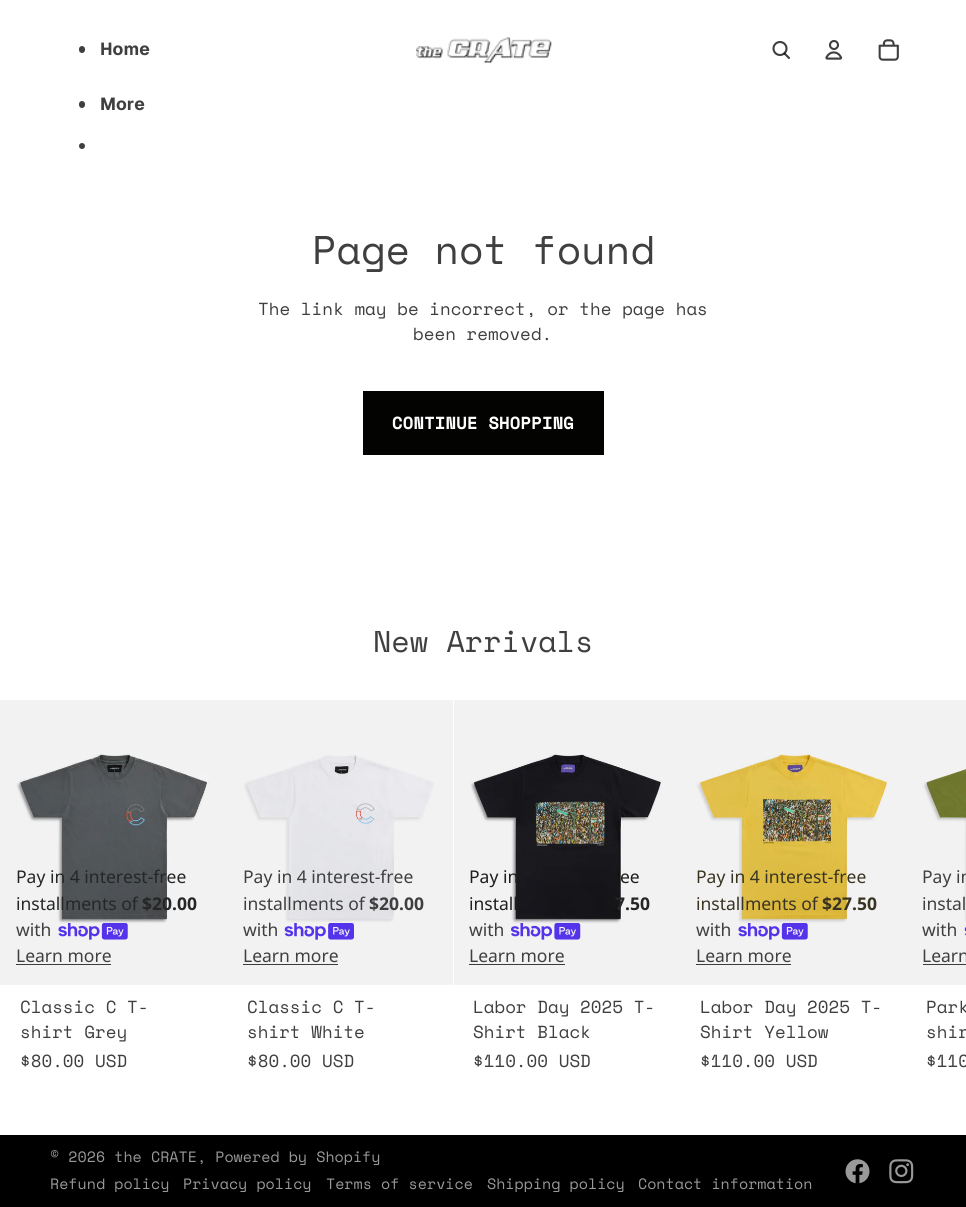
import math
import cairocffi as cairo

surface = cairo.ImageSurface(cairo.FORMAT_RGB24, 966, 1207)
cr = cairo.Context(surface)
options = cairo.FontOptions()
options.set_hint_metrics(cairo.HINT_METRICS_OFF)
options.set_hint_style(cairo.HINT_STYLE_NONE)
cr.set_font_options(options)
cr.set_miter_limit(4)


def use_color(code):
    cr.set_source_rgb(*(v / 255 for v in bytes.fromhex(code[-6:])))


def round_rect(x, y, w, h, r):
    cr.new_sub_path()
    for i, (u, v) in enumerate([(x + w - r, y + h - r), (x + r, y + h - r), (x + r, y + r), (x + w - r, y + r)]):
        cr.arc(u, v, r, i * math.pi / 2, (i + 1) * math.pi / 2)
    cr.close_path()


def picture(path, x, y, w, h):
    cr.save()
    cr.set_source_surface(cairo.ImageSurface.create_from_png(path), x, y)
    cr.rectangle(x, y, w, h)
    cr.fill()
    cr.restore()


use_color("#ffffff")
cr.paint()
use_color("#3f3f3f")
round_rect(79, 46, 6, 7, 3)
cr.fill()
cr.select_font_face("Geist", cairo.FONT_SLANT_NORMAL, cairo.FONT_WEIGHT_BOLD)
cr.set_font_size(17.5)
cr.move_to(100, 55)
cr.show_text("Home")
round_rect(79, 101, 6, 7, 3)
cr.fill()
cr.move_to(100, 110)
cr.show_text("More")
cr.new_path()
cr.arc(82, 146, 3, 0, 2 * math.pi)
cr.fill()
picture("img1.png", 416, 37, 136, 26)
cr.arc(780, 48.5, 6.5, 0, 2 * math.pi)
cr.set_line_width(2.1)
cr.stroke()
cr.new_path()
cr.move_to(784.5, 53.5)
cr.line_to(789, 58)
cr.set_source_rgba(0.012, 0.012, 0.008, 0.76)
cr.set_line_cap(cairo.LINE_CAP_ROUND)
cr.set_line_join(cairo.LINE_JOIN_ROUND)
cr.stroke()
picture("img2.png", 825, 40, 18, 20)
picture("img3.png", 878, 39, 21, 22)
cr.select_font_face("Space Mono")
cr.set_font_size(40)
use_color("#3f3f3f")
cr.move_to(312, 264)
cr.show_text("Page not found")
cr.set_font_size(17.5)
cr.move_to(258, 315)
cr.show_text("The link may be incorrect, or the page has")
cr.move_to(413, 340)
cr.show_text("been removed.")
use_color("#030302")
cr.rectangle(363, 391, 241, 64)
cr.fill()
cr.select_font_face("Space Mono", cairo.FONT_SLANT_NORMAL, cairo.FONT_WEIGHT_BOLD)
use_color("#ffffff")
cr.move_to(392, 429)
cr.show_text("CONTINUE SHOPPING")
cr.select_font_face("Space Mono")
cr.set_font_size(30)
use_color("#3f3f3f")
cr.move_to(373, 652)
cr.show_text("New Arrivals")
picture("img4.png", 0, 700, 226, 285)
cr.select_font_face("Noto Sans")
cr.set_font_size(17.5)
use_color("#252626")
cr.move_to(16, 883)
cr.show_text("Pay in 4 interest-free")
cr.move_to(16, 910)
cr.show_text("installments of")
cr.select_font_face("Noto Sans", cairo.FONT_SLANT_NORMAL, cairo.FONT_WEIGHT_BOLD)
cr.move_to(142, 910)
cr.show_text("$20.00")
cr.select_font_face("Noto Sans")
use_color("#3f3f3f")
cr.move_to(16, 936)
cr.show_text("with")
picture("img5.png", 58, 923, 70, 17)
cr.move_to(16, 962)
cr.show_text("Learn more")
use_color("#3c3c3c")
cr.rectangle(16, 964, 95, 1)
cr.fill()
cr.select_font_face("Space Mono")
use_color("#3f3f3f")
cr.move_to(20, 1013)
cr.show_text("Classic C T-")
cr.move_to(20, 1038)
cr.show_text("shirt Grey")
cr.move_to(20, 1067)
cr.show_text("$80.00 USD")
picture("img6.png", 226, 700, 227, 285)
cr.select_font_face("Noto Sans")
cr.move_to(243, 883)
cr.show_text("Pay in 4 interest-free")
cr.move_to(243, 910)
cr.show_text("installments of")
cr.select_font_face("Noto Sans", cairo.FONT_SLANT_NORMAL, cairo.FONT_WEIGHT_BOLD)
cr.move_to(369, 910)
cr.show_text("$20.00")
cr.select_font_face("Noto Sans")
cr.move_to(243, 936)
cr.show_text("with")
picture("img7.png", 284, 923, 70, 17)
cr.move_to(243, 962)
cr.show_text("Learn more")
use_color("#3c3c3c")
cr.rectangle(243, 964, 95, 1)
cr.fill()
cr.select_font_face("Space Mono")
use_color("#3f3f3f")
cr.move_to(247, 1013)
cr.show_text("Classic C T-")
cr.move_to(247, 1038)
cr.show_text("shirt White")
cr.move_to(247, 1067)
cr.show_text("$80.00 USD")
picture("img8.png", 454, 700, 226, 285)
cr.select_font_face("Noto Sans")
use_color("#1e1e1d")
cr.move_to(469, 883)
cr.show_text("Pay in")
cr.move_to(620, 883)
cr.show_text("ee")
cr.move_to(469, 910)
cr.show_text("install")
cr.select_font_face("Noto Sans", cairo.FONT_SLANT_NORMAL, cairo.FONT_WEIGHT_BOLD)
use_color("#252626")
cr.move_to(615, 910)
cr.show_text("7.50")
cr.select_font_face("Noto Sans")
use_color("#3f3f3f")
cr.move_to(469, 936)
cr.show_text("with")
picture("img9.png", 511, 923, 70, 17)
cr.move_to(469, 962)
cr.show_text("Learn more")
use_color("#3c3c3c")
cr.rectangle(469, 964, 96, 1)
cr.fill()
cr.select_font_face("Space Mono")
use_color("#3f3f3f")
cr.move_to(473, 1013)
cr.show_text("Labor Day 2025 T-")
cr.move_to(473, 1038)
cr.show_text("Shirt Black")
cr.move_to(473, 1067)
cr.show_text("$110.00 USD")
picture("img10.png", 680, 700, 226, 285)
cr.select_font_face("Noto Sans")
use_color("#393422")
cr.move_to(696, 883)
cr.show_text("Pay in 4 interest-free")
cr.move_to(696, 910)
cr.show_text("installments of")
cr.select_font_face("Noto Sans", cairo.FONT_SLANT_NORMAL, cairo.FONT_WEIGHT_BOLD)
cr.move_to(822, 910)
cr.show_text("$27.50")
cr.select_font_face("Noto Sans")
use_color("#3f3f3f")
cr.move_to(696, 936)
cr.show_text("with")
picture("img11.png", 738, 923, 70, 17)
cr.move_to(696, 962)
cr.show_text("Learn more")
use_color("#3c3c3c")
cr.rectangle(696, 964, 95, 1)
cr.fill()
cr.select_font_face("Space Mono")
use_color("#3f3f3f")
cr.move_to(700, 1013)
cr.show_text("Labor Day 2025 T-")
cr.move_to(700, 1038)
cr.show_text("Shirt Yellow")
cr.move_to(700, 1067)
cr.show_text("$110.00 USD")
picture("img12.png", 906, 700, 60, 285)
cr.select_font_face("Noto Sans")
cr.move_to(922, 883)
cr.show_text("Pay in")
cr.move_to(922, 910)
cr.show_text("instal")
cr.move_to(922, 936)
cr.show_text("with")
picture("img13.png", 964, 927, 2, 9)
cr.move_to(922, 962)
cr.show_text("Learn")
use_color("#3c3c3c")
cr.rectangle(923, 964, 43, 1)
cr.fill()
cr.select_font_face("Space Mono")
use_color("#3f3f3f")
cr.move_to(926, 1013)
cr.show_text("Park")
cr.move_to(926, 1038)
cr.show_text("shir")
cr.move_to(926, 1067)
cr.show_text("$110")
use_color("#000000")
cr.rectangle(0, 1135, 966, 72)
cr.fill()
cr.set_font_size(15)
use_color("#999999")
cr.move_to(50, 1162)
cr.show_text("© 2026 the CRATE, Powered by Shopify")
cr.move_to(50, 1189)
cr.show_text("Refund policy")
cr.move_to(183, 1189)
cr.show_text("Privacy policy")
cr.move_to(326, 1189)
cr.show_text("Terms of service")
cr.move_to(487, 1189)
cr.show_text("Shipping policy")
cr.move_to(638, 1189)
cr.show_text("Contact information")
picture("img14.png", 845, 1159, 25, 25)
picture("img15.png", 889, 1159, 25, 25)
surface.write_to_png("result.png")
